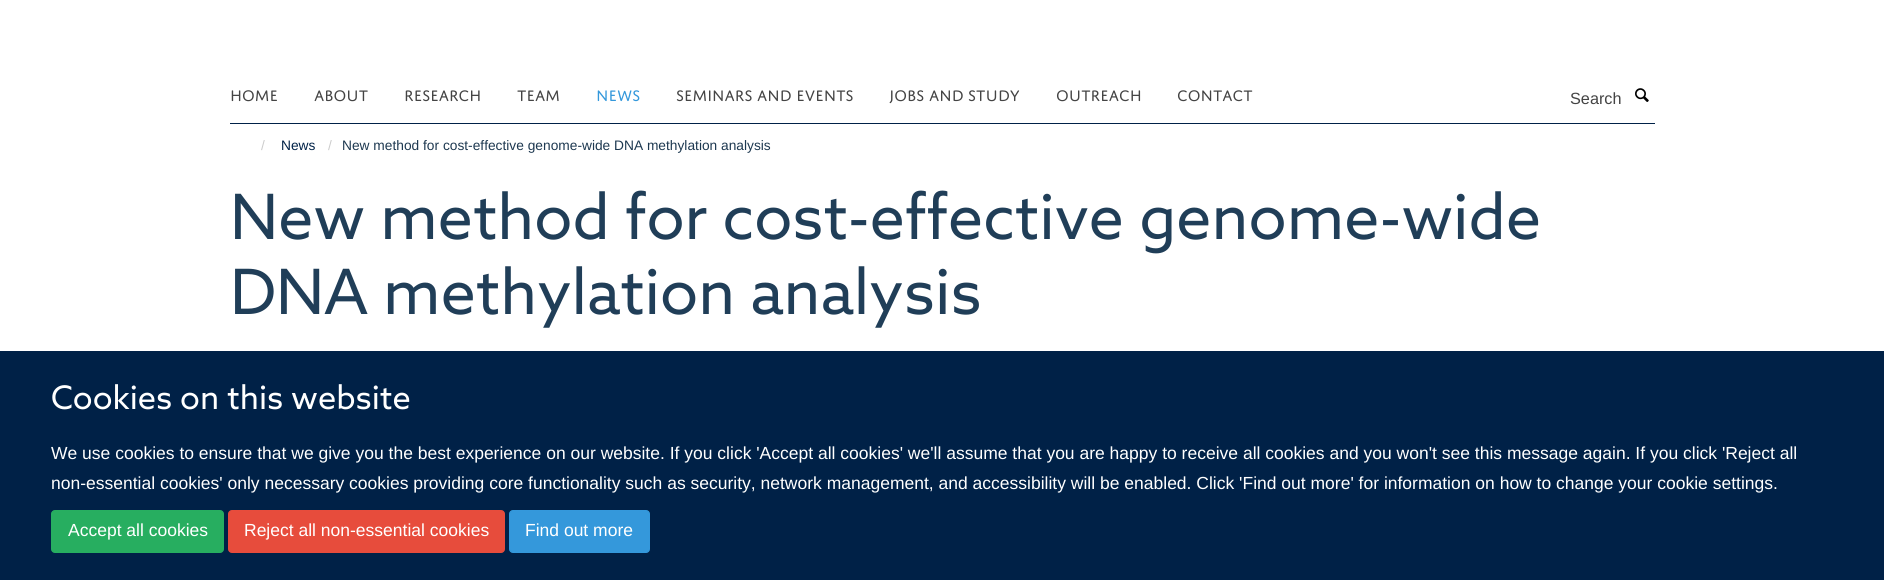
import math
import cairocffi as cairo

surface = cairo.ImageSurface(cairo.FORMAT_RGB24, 1884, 580)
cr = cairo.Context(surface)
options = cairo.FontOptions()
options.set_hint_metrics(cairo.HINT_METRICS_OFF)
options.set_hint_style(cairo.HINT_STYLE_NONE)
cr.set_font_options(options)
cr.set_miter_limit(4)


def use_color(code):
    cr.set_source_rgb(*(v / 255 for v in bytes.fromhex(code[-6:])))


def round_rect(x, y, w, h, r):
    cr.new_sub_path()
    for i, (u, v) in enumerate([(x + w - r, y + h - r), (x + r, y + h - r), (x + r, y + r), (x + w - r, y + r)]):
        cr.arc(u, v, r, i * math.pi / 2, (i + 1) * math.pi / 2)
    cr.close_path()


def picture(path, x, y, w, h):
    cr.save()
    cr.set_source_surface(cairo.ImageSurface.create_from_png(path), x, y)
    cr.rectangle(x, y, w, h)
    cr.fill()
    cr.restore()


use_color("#ffffff")
cr.paint()
use_color("#002147")
cr.rectangle(230, 123, 1425, 1)
cr.fill()
cr.select_font_face("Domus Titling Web")
cr.set_font_size(16.25)
use_color("#444444")
cr.move_to(230, 101)
cr.show_text("HOME")
cr.move_to(314, 101)
cr.show_text("ABOUT")
cr.move_to(404, 101)
cr.show_text("RESEARCH")
cr.move_to(517, 101)
cr.show_text("TEAM")
use_color("#3498db")
cr.move_to(596, 101)
cr.show_text("NEWS")
use_color("#444444")
cr.move_to(676, 101)
cr.show_text("SEMINARS AND EVENTS")
cr.move_to(889, 101)
cr.show_text("JOBS AND STUDY")
cr.move_to(1056, 101)
cr.show_text("OUTREACH")
cr.move_to(1177, 101)
cr.show_text("CONTACT")
cr.select_font_face("Liberation Sans")
cr.move_to(1570, 104)
cr.show_text("Search")
picture("img1.png", 1635, 88, 14, 14)
cr.set_font_size(13.75)
use_color("#cccccc")
cr.move_to(261, 150)
cr.show_text("/")
use_color("#002147")
cr.move_to(281, 150)
cr.show_text("News")
use_color("#cccccc")
cr.move_to(328, 150)
cr.show_text("/")
use_color("#1d3850")
cr.move_to(342, 150)
cr.show_text("New method for cost-effective genome-wide DNA methylation analysis")
cr.select_font_face("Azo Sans")
cr.set_font_size(62.5)
use_color("#203e58")
cr.move_to(230, 239)
cr.show_text("New method for cost-effective genome-wide")
cr.move_to(230, 314)
cr.show_text("DNA methylation analysis")
use_color("#002147")
cr.rectangle(0, 351, 1884, 229)
cr.fill()
cr.set_font_size(32.5)
use_color("#ffffff")
cr.move_to(51, 409)
cr.show_text("Cookies on this website")
cr.select_font_face("Liberation Sans")
cr.set_font_size(17.5)
cr.move_to(51, 459)
cr.show_text("We use cookies to ensure that we give you the best experience on our website. If you click 'Accept all cookies' we'll assume that you are happy to receive all cookies and you won't see this message again. If you click 'Reject all")
cr.move_to(51, 489)
cr.show_text("non-essential cookies' only necessary cookies providing core functionality such as security, network management, and accessibility will be enabled. Click 'Find out more' for information on how to change your cookie settings.")
use_color("#27ae60")
round_rect(51.5, 510.5, 172, 42, 3.5)
cr.fill_preserve()
cr.set_line_width(1)
cr.stroke()
use_color("#ffffff")
cr.move_to(68, 536)
cr.show_text("Accept all cookies")
use_color("#e74c3c")
round_rect(228.5, 510.5, 276, 42, 3.5)
cr.fill_preserve()
cr.stroke()
use_color("#ffffff")
cr.move_to(244, 536)
cr.show_text("Reject all non-essential cookies")
use_color("#3498db")
round_rect(509.5, 510.5, 140, 42, 3.5)
cr.fill_preserve()
cr.stroke()
use_color("#ffffff")
cr.move_to(525, 536)
cr.show_text("Find out more")
surface.write_to_png("result.png")
